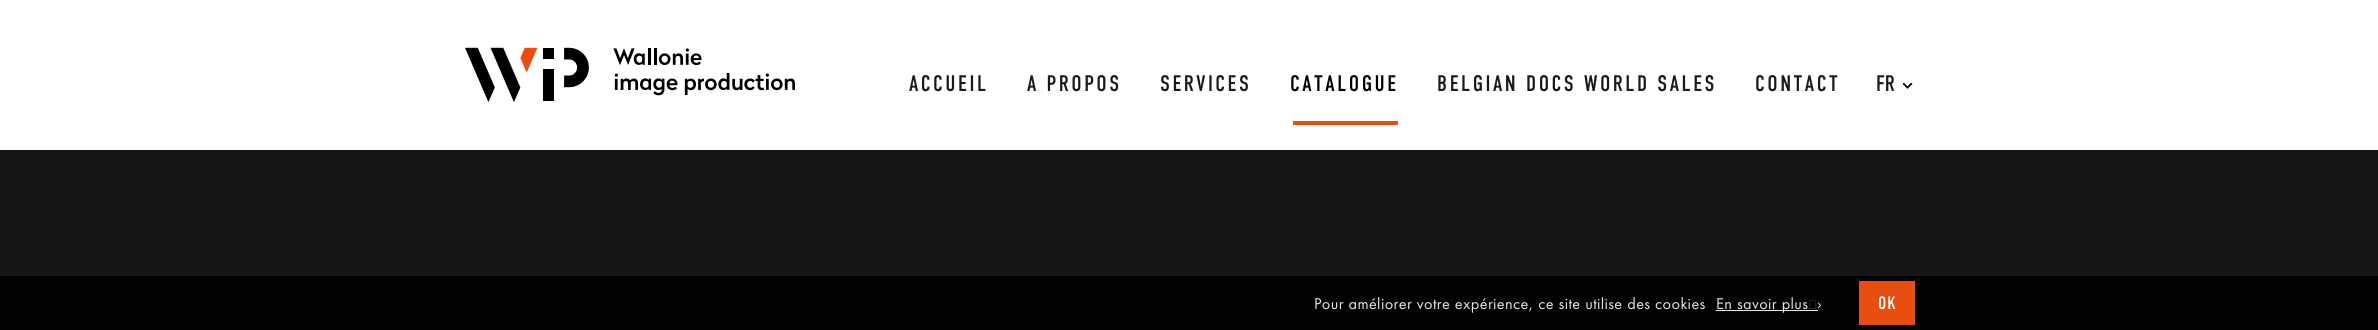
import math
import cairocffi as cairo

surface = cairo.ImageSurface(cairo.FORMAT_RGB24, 2378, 330)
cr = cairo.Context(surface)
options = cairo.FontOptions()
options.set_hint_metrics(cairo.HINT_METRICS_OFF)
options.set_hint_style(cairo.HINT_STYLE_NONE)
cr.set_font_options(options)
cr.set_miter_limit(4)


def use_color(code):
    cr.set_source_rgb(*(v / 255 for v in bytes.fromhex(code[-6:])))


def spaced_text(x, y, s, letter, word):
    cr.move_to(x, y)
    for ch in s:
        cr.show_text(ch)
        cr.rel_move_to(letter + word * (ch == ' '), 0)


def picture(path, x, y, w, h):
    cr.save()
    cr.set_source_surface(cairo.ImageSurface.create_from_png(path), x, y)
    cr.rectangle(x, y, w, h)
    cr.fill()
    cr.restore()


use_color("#141516")
cr.paint()
use_color("#ffffff")
cr.rectangle(0, 0, 2378, 150)
cr.fill()
picture("img1.png", 465, 47, 330, 55)
cr.select_font_face("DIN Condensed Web")
cr.set_font_size(22.5)
use_color("#1a1a1a")
spaced_text(909, 91, "ACCUEIL", 2.5, 0)
spaced_text(1027, 91, "A PROPOS", 2.5, 0)
spaced_text(1160, 91, "SERVICES", 2.5, 0)
use_color("#000000")
spaced_text(1290, 91, "CATALOGUE", 2.5, 0)
use_color("#e84e0f")
cr.rectangle(1293, 121, 105, 4)
cr.fill()
use_color("#1a1a1a")
spaced_text(1437, 91, "BELGIAN DOCS WORLD SALES", 2.5, 0)
spaced_text(1755, 91, "CONTACT", 2.5, 0)
cr.move_to(1876, 91)
cr.show_text("FR")
picture("img2.png", 1903, 83, 10, 6)
use_color("#020202")
cr.rectangle(0, 276, 2378, 54)
cr.fill()
cr.select_font_face("Futura PT")
cr.set_font_size(16.25)
use_color("#e6e6e6")
spaced_text(1314, 309, "Pour améliorer votre expérience, ce site utilise des cookies", 0.38, 0.5)
cr.rectangle(1716, 310, 102, 1)
cr.fill()
spaced_text(1716, 309, "En savoir plus ›", 0.38, 0.5)
use_color("#e84e0f")
cr.rectangle(1859, 281, 56, 44)
cr.fill()
cr.select_font_face("DIN Condensed Web")
cr.set_font_size(18)
use_color("#ffffff")
spaced_text(1878, 309, "OK", 1, 0)
surface.write_to_png("result.png")
